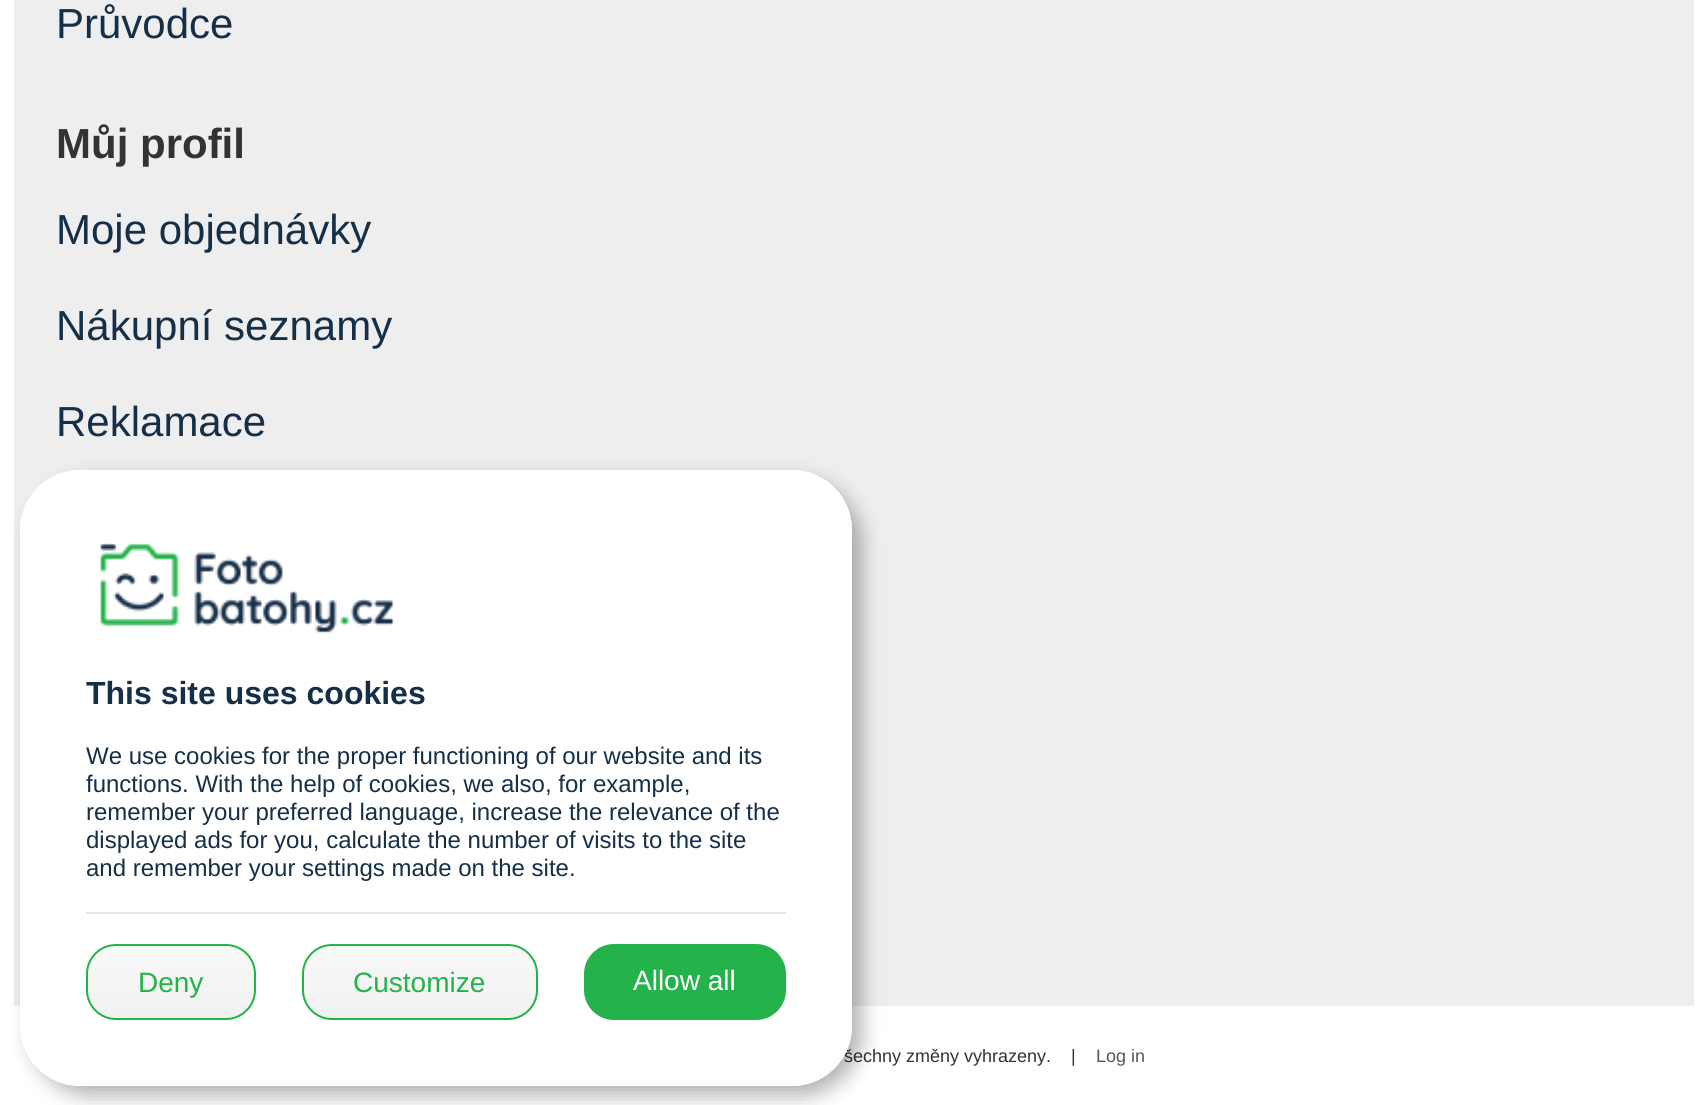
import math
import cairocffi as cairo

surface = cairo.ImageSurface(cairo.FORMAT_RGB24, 1708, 1105)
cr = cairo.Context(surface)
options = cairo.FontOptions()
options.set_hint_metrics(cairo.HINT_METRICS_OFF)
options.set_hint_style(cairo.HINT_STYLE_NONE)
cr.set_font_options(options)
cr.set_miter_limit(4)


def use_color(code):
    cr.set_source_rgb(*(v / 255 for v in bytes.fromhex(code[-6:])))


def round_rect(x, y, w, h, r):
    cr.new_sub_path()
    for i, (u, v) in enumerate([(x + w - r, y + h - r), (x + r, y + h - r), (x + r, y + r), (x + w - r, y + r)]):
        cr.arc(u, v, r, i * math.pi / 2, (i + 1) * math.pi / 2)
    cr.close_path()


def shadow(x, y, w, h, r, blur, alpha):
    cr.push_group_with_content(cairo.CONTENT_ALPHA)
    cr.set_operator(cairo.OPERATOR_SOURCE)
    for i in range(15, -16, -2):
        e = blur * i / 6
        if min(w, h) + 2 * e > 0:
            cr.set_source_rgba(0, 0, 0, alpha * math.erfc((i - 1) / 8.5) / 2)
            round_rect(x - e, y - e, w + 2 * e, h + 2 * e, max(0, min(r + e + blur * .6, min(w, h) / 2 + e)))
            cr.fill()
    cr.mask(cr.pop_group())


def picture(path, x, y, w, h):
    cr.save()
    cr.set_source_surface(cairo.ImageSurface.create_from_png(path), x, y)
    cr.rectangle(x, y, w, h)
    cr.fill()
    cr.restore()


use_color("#ffffff")
cr.paint()
use_color("#eeeeee")
cr.rectangle(14, 0, 1680, 1006)
cr.fill()
cr.select_font_face("Liberation Sans")
cr.set_font_size(42)
use_color("#162f48")
cr.move_to(56, 38)
cr.show_text("Průvodce")
cr.select_font_face("Liberation Sans", cairo.FONT_SLANT_NORMAL, cairo.FONT_WEIGHT_BOLD)
use_color("#333333")
cr.move_to(56, 158)
cr.show_text("Můj profil")
cr.select_font_face("Liberation Sans")
use_color("#162f48")
cr.move_to(56, 244)
cr.show_text("Moje objednávky")
cr.move_to(56, 340)
cr.show_text("Nákupní seznamy")
cr.move_to(56, 436)
cr.show_text("Reklamace")
cr.set_font_size(18)
use_color("#333333")
cr.move_to(844, 1062)
cr.show_text("šechny změny vyhrazeny.    |")
use_color("#555555")
cr.move_to(1096, 1062)
cr.show_text("Log in")
use_color("#000000")
shadow(30, 480, 832, 616, 60, 10, 0.3)
use_color("#ffffff")
round_rect(20, 470, 832, 616, 60)
cr.fill()
picture("img1.png", 100, 543, 294, 90)
round_rect(23, 473, 826, 610, 57)
cr.set_line_width(6)
cr.stroke()
cr.select_font_face("Liberation Sans", cairo.FONT_SLANT_NORMAL, cairo.FONT_WEIGHT_BOLD)
cr.set_font_size(32)
use_color("#162f48")
cr.move_to(86, 704)
cr.show_text("This site uses cookies")
cr.select_font_face("Liberation Sans")
cr.set_font_size(24)
cr.move_to(86, 764)
cr.show_text("We use cookies for the proper functioning of our website and its")
cr.move_to(86, 792)
cr.show_text("functions. With the help of cookies, we also, for example,")
cr.move_to(86, 820)
cr.show_text("remember your preferred language, increase the relevance of the")
cr.move_to(86, 848)
cr.show_text("displayed ads for you, calculate the number of visits to the site")
cr.move_to(86, 876)
cr.show_text("and remember your settings made on the site.")
use_color("#e6e6e6")
cr.rectangle(86, 912, 700, 2)
cr.fill()
cr.save()
round_rect(86, 944, 170, 76, 30)
cr.clip()
gradient = cairo.LinearGradient(171, 946, 171, 1018)
gradient.add_color_stop_rgba(0, 0.973, 0.973, 0.973, 1)
gradient.add_color_stop_rgba(1, 0.945, 0.945, 0.945, 1)
cr.set_source(gradient)
cr.rectangle(86, 946, 170, 72)
cr.fill()
cr.restore()
round_rect(87, 945, 168, 74, 29)
use_color("#24b34b")
cr.set_line_width(2)
cr.stroke()
cr.set_font_size(28)
cr.move_to(138, 992)
cr.show_text("Deny")
cr.save()
round_rect(302, 944, 236, 76, 30)
cr.clip()
gradient = cairo.LinearGradient(420, 946, 420, 1018)
gradient.add_color_stop_rgba(0, 0.973, 0.973, 0.973, 1)
gradient.add_color_stop_rgba(1, 0.945, 0.945, 0.945, 1)
cr.set_source(gradient)
cr.rectangle(302, 946, 236, 72)
cr.fill()
cr.restore()
round_rect(303, 945, 234, 74, 29)
cr.stroke()
cr.move_to(353, 992)
cr.show_text("Customize")
round_rect(584, 944, 202, 76, 30)
cr.fill()
use_color("#ffffff")
cr.move_to(633, 990)
cr.show_text("Allow all")
surface.write_to_png("result.png")
